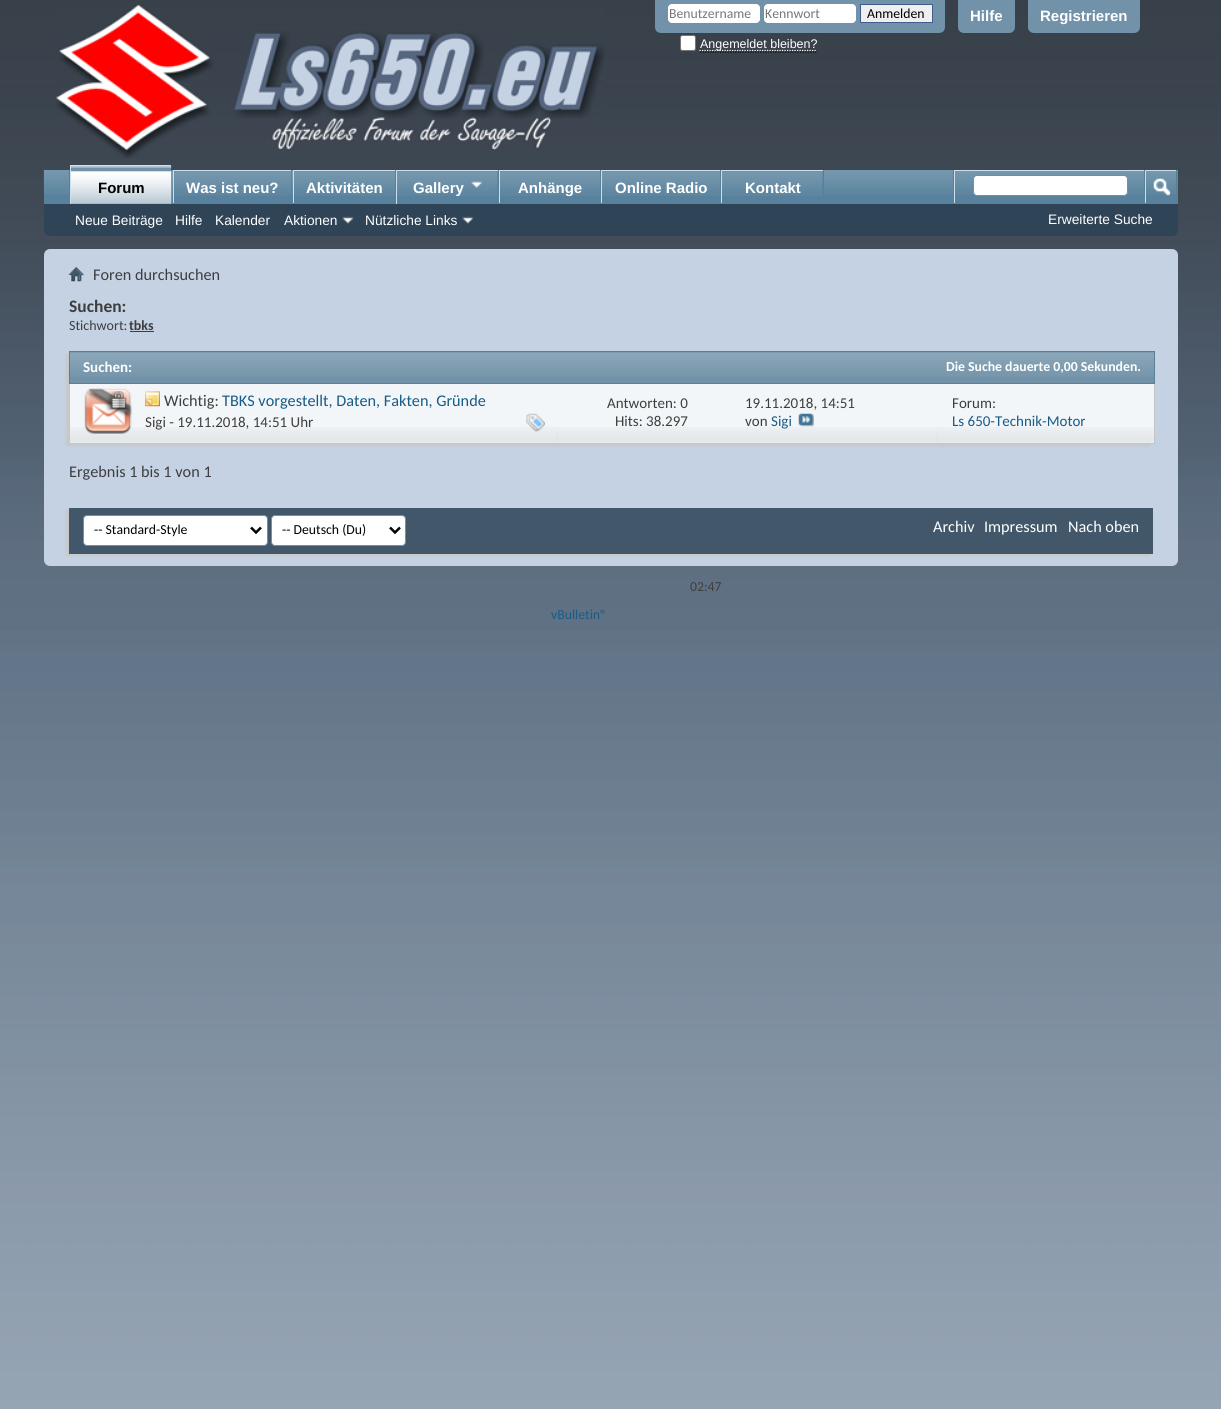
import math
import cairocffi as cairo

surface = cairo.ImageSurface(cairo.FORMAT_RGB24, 1221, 1409)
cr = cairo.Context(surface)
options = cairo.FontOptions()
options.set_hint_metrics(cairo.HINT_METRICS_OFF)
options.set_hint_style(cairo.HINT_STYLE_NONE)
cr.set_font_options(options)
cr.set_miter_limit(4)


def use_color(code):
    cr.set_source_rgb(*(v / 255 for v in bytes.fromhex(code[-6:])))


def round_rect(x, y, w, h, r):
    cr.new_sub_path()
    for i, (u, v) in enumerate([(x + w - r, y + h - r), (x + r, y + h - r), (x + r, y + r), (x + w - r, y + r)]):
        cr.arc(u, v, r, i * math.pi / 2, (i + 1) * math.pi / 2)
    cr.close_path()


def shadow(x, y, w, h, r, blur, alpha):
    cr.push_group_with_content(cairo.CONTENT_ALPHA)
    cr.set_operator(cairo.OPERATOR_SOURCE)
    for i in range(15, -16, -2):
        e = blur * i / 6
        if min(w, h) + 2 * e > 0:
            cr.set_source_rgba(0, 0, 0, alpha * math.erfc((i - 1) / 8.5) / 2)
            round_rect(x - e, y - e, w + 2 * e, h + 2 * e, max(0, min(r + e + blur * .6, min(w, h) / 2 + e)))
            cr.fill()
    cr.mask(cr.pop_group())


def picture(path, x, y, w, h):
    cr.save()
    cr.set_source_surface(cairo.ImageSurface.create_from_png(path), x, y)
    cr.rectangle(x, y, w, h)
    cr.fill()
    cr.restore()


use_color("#ffffff")
cr.paint()
picture("img1.png", 0, 0, 1221, 1409)
picture("img2.png", 56, 4, 549, 154)
use_color("#7192a8")
cr.new_path()
cr.move_to(655, 0)
cr.line_to(945, 0)
cr.line_to(945, 27)
cr.curve_to(945, 30.5, 942.5, 33, 939, 33)
cr.line_to(661, 33)
cr.curve_to(657.5, 33, 655, 30.5, 655, 27)
cr.close_path()
cr.fill()
use_color("#ffffff")
round_rect(668, 4, 92, 19, 4)
cr.fill()
cr.select_font_face("Carlito")
cr.set_font_size(13.75)
use_color("#777777")
cr.move_to(669, 18)
cr.show_text("Benutzername")
use_color("#ffffff")
round_rect(764, 4, 92, 19, 4)
cr.fill()
use_color("#777777")
cr.move_to(765, 18)
cr.show_text("Kennwort")
use_color("#efefef")
cr.rectangle(860.5, 4.5, 72, 18)
cr.fill_preserve()
use_color("#415d8d")
cr.set_line_width(1)
cr.stroke()
use_color("#000000")
cr.move_to(867, 18)
cr.show_text("Anmelden")
use_color("#ffffff")
round_rect(680.5, 35.5, 15, 15, 2)
cr.fill_preserve()
use_color("#767676")
cr.stroke()
cr.new_path()
cr.move_to(700, 52)
cr.line_to(817.5, 52)
use_color("#000000")
cr.set_line_width(1.2)
cr.set_dash([1.25, 1.25])
cr.stroke()
cr.new_path()
cr.move_to(699.5, 50.5)
cr.line_to(817, 50.5)
use_color("#ffffff")
cr.stroke()
cr.select_font_face("Liberation Sans")
cr.set_font_size(12.5)
cr.move_to(700, 48)
cr.show_text("Angemeldet bleiben?")
use_color("#7192a8")
cr.new_path()
cr.move_to(958, 0)
cr.line_to(1015, 0)
cr.line_to(1015, 27)
cr.curve_to(1015, 30.5, 1012.5, 33, 1009, 33)
cr.line_to(964, 33)
cr.curve_to(960.5, 33, 958, 30.5, 958, 27)
cr.close_path()
cr.fill()
cr.select_font_face("Liberation Sans", cairo.FONT_SLANT_NORMAL, cairo.FONT_WEIGHT_BOLD)
cr.set_font_size(15)
use_color("#ffffff")
cr.move_to(970, 21)
cr.show_text("Hilfe")
use_color("#7192a8")
cr.new_path()
cr.move_to(1028, 0)
cr.line_to(1140, 0)
cr.line_to(1140, 27)
cr.curve_to(1140, 30.5, 1137.5, 33, 1134, 33)
cr.line_to(1034, 33)
cr.curve_to(1030.5, 33, 1028, 30.5, 1028, 27)
cr.close_path()
cr.fill()
use_color("#ffffff")
cr.move_to(1040, 21)
cr.show_text("Registrieren")
use_color("#2f4456")
cr.new_path()
cr.move_to(44, 170)
cr.line_to(1178, 170)
cr.line_to(1178, 230)
cr.curve_to(1178, 233.5, 1175.5, 236, 1172, 236)
cr.line_to(50, 236)
cr.curve_to(46.5, 236, 44, 233.5, 44, 230)
cr.close_path()
cr.fill()
use_color("#57819c")
cr.rectangle(44, 170, 1134, 33)
cr.fill()
picture("img3.png", 43, 170, 1135, 25)
use_color("#5a7f97")
cr.rectangle(171, 170, 1, 33)
cr.fill()
cr.rectangle(69, 170, 1, 33)
cr.fill()
cr.rectangle(291, 170, 1, 34)
cr.fill()
use_color("#57819c")
cr.rectangle(174, 171, 117, 24)
cr.fill()
picture("img5.png", 172, 171, 120, 25)
use_color("#cedfeb")
cr.rectangle(173, 170, 118, 1)
cr.fill()
cr.rectangle(173, 170, 1, 34)
cr.fill()
use_color("#5a7f97")
cr.rectangle(395, 170, 1, 34)
cr.fill()
use_color("#57819c")
cr.rectangle(294, 171, 101, 24)
cr.fill()
picture("img6.png", 292, 171, 103, 25)
use_color("#cedfeb")
cr.rectangle(293, 170, 102, 1)
cr.fill()
cr.rectangle(293, 170, 1, 34)
cr.fill()
use_color("#5a7f97")
cr.rectangle(600, 170, 1, 34)
cr.fill()
use_color("#cedfeb")
cr.rectangle(499, 170, 101, 1)
cr.fill()
cr.rectangle(499, 170, 1, 34)
cr.fill()
use_color("#5a7f97")
cr.rectangle(720, 170, 1, 34)
cr.fill()
use_color("#cedfeb")
cr.rectangle(601, 170, 119, 1)
cr.fill()
cr.rectangle(601, 170, 1, 34)
cr.fill()
use_color("#5a7f97")
cr.rectangle(823, 170, 1, 34)
cr.fill()
use_color("#cedfeb")
cr.rectangle(721, 170, 102, 1)
cr.fill()
cr.rectangle(721, 170, 1, 34)
cr.fill()
use_color("#5a7f97")
cr.rectangle(44, 203, 1134, 1)
cr.fill()
use_color("#7192a8")
cr.rectangle(71, 166, 100, 38)
cr.fill()
picture("img4.png", 71, 166, 101, 38)
use_color("#cedfeb")
cr.rectangle(70, 165, 101, 1)
cr.fill()
cr.rectangle(70, 165, 1, 39)
cr.fill()
use_color("#000000")
cr.move_to(98, 193)
cr.show_text("Forum")
use_color("#ffffff")
cr.move_to(186, 193)
cr.show_text("Was ist neu?")
cr.move_to(306, 193)
cr.show_text("Aktivitäten")
use_color("#5a7f97")
cr.rectangle(498, 170, 1, 34)
cr.fill()
use_color("#57819c")
cr.rectangle(397, 171, 101, 33)
cr.fill()
picture("img7.png", 397, 171, 101, 25)
use_color("#cedfeb")
cr.rectangle(396, 170, 102, 1)
cr.fill()
cr.rectangle(396, 170, 1, 34)
cr.fill()
use_color("#ffffff")
cr.move_to(413, 193)
cr.show_text("Gallery")
picture("img8.png", 471, 181, 12, 7)
use_color("#57819c")
cr.rectangle(500, 171, 100, 24)
cr.fill()
picture("img9.png", 500, 171, 100, 25)
use_color("#ffffff")
cr.move_to(518, 193)
cr.show_text("Anhänge")
use_color("#57819c")
cr.rectangle(602, 171, 118, 24)
cr.fill()
picture("img10.png", 602, 171, 118, 25)
use_color("#ffffff")
cr.move_to(615, 193)
cr.show_text("Online Radio")
use_color("#57819c")
cr.rectangle(722, 171, 101, 24)
cr.fill()
picture("img7.png", 722, 171, 101, 25)
use_color("#ffffff")
cr.move_to(745, 193)
cr.show_text("Kontakt")
cr.select_font_face("Liberation Sans")
cr.set_font_size(13.75)
cr.move_to(75, 225)
cr.show_text("Neue Beiträge")
cr.move_to(175, 225)
cr.show_text("Hilfe")
cr.move_to(215, 225)
cr.show_text("Kalender")
cr.move_to(284, 225)
cr.show_text("Aktionen")
picture("img11.png", 342, 216, 12, 8)
cr.move_to(365, 225)
cr.show_text("Nützliche Links")
picture("img12.png", 462, 216, 12, 8)
use_color("#5a7f97")
cr.rectangle(953, 170, 1, 33)
cr.fill()
use_color("#cedfeb")
cr.rectangle(954, 170, 190, 1)
cr.fill()
cr.rectangle(954, 170, 1, 33)
cr.fill()
use_color("#ffffff")
round_rect(973.5, 175.5, 154, 20, 3.5)
cr.fill_preserve()
use_color("#6b91ab")
cr.set_line_width(1)
cr.set_dash([])
cr.stroke()
use_color("#5a7f97")
cr.rectangle(1176, 170, 1, 33)
cr.fill()
cr.rectangle(1144, 170, 1, 33)
cr.fill()
use_color("#cedfeb")
cr.rectangle(1145, 170, 31, 1)
cr.fill()
cr.rectangle(1145, 170, 1, 33)
cr.fill()
picture("img13.png", 1153, 178, 18, 18)
use_color("#ffffff")
cr.move_to(1048, 224)
cr.show_text("Erweiterte Suche")
use_color("#c4d2e4")
round_rect(44, 249, 1134, 317, 6)
cr.fill()
picture("img14.png", 68, 267, 16, 15)
cr.select_font_face("Carlito")
cr.set_font_size(16.25)
use_color("#3e3e3e")
cr.move_to(93, 280)
cr.show_text("Foren durchsuchen")
cr.select_font_face("Carlito", cairo.FONT_SLANT_NORMAL, cairo.FONT_WEIGHT_BOLD)
cr.set_font_size(17.5)
cr.move_to(69, 312)
cr.show_text("Suchen:")
cr.select_font_face("Carlito")
cr.set_font_size(14)
cr.move_to(69, 330)
cr.show_text("Stichwort:")
cr.select_font_face("Carlito", cairo.FONT_SLANT_NORMAL, cairo.FONT_WEIGHT_BOLD)
cr.move_to(129, 330)
cr.show_text("tbks")
cr.rectangle(130, 331, 24, 1)
cr.fill()
use_color("#c8c8c8")
shadow(66, 354, 1087, 32, 0, 1, 1)
use_color("#7192a8")
cr.rectangle(70, 352, 1084, 31)
cr.fill()
picture("img15.png", 70, 352, 1084, 25)
cr.rectangle(69.5, 351.5, 1085, 32)
use_color("#5a7f97")
cr.stroke()
cr.set_font_size(15)
use_color("#ffffff")
cr.move_to(83, 372)
cr.show_text("Suchen:")
cr.set_font_size(13.75)
cr.move_to(946, 371)
cr.show_text("Die Suche dauerte 0,00 Sekunden.")
use_color("#c8c8c8")
shadow(66, 386, 1084, 60, 0, 1, 1)
use_color("#f2f6f8")
cr.rectangle(70, 384, 1084, 59)
cr.fill()
picture("img16.png", 70, 427, 868, 16)
use_color("#c4c4c4")
cr.rectangle(1154, 384, 1, 60)
cr.fill()
cr.rectangle(69, 443, 1086, 1)
cr.fill()
cr.rectangle(69, 384, 1, 60)
cr.fill()
picture("img17.png", 84, 388, 48, 46)
picture("img18.png", 145, 391, 15, 16)
cr.select_font_face("Carlito")
cr.set_font_size(16.25)
use_color("#3e3e3e")
cr.move_to(164, 406)
cr.show_text("Wichtig:")
use_color("#185b87")
cr.move_to(222, 406)
cr.show_text("TBKS vorgestellt, Daten, Fakten, Gründe")
cr.set_font_size(15)
use_color("#3e3e3e")
cr.move_to(145, 427)
cr.show_text("Sigi - 19.11.2018, 14:51 Uhr")
picture("img19.png", 526, 413, 19, 19)
use_color("#f2f6f8")
cr.rectangle(558, 427, 162, 16)
cr.fill()
picture("img20.png", 557, 427, 163, 16)
use_color("#3e3e3e")
cr.move_to(607, 408)
cr.show_text("Antworten: 0")
cr.move_to(615, 426)
cr.show_text("Hits: 38.297")
cr.move_to(745, 408)
cr.show_text("19.11.2018, 14:51")
cr.move_to(745, 426)
cr.show_text("von")
use_color("#185b87")
cr.move_to(771, 426)
cr.show_text("Sigi")
picture("img21.png", 798, 413, 16, 14)
picture("img22.png", 937, 427, 217, 16)
use_color("#3e3e3e")
cr.move_to(952, 408)
cr.show_text("Forum:")
use_color("#185b87")
cr.move_to(952, 426)
cr.show_text("Ls 650-Technik-Motor")
cr.set_font_size(16.25)
use_color("#3e3e3e")
cr.move_to(69, 477)
cr.show_text("Ergebnis 1 bis 1 von 1")
use_color("#c8c8c8")
shadow(66, 510, 1084, 46, 0, 1, 1)
use_color("#425769")
cr.rectangle(69, 508, 1084, 46)
cr.fill()
use_color("#ffffff")
round_rect(83.5, 515.5, 184, 30, 3.5)
cr.fill_preserve()
use_color("#6b91ab")
cr.stroke()
cr.new_path()
cr.move_to(251, 527.5)
cr.line_to(256, 532.5)
cr.line_to(261, 527.5)
use_color("#000000")
cr.set_line_width(2.5)
cr.stroke()
cr.set_font_size(13.75)
cr.move_to(94, 534)
cr.show_text("-- Standard-Style")
use_color("#ffffff")
round_rect(271.5, 515.5, 134, 30, 3.5)
cr.fill_preserve()
use_color("#6b91ab")
cr.set_line_width(1)
cr.stroke()
cr.new_path()
cr.move_to(390, 527.5)
cr.line_to(395, 532.5)
cr.line_to(400, 527.5)
use_color("#000000")
cr.set_line_width(2.5)
cr.stroke()
cr.move_to(282, 534)
cr.show_text("-- Deutsch (Du)")
cr.set_font_size(16.25)
use_color("#ffffff")
cr.move_to(933, 532)
cr.show_text("Archiv")
cr.move_to(984, 532)
cr.show_text("Impressum")
cr.move_to(1068, 532)
cr.show_text("Nach oben")
cr.set_font_size(13.75)
use_color("#3e3e3e")
cr.move_to(690, 591)
cr.show_text("02:47")
use_color("#185b87")
cr.move_to(551, 619)
cr.show_text("vBulletin®")
surface.write_to_png("result.png")
